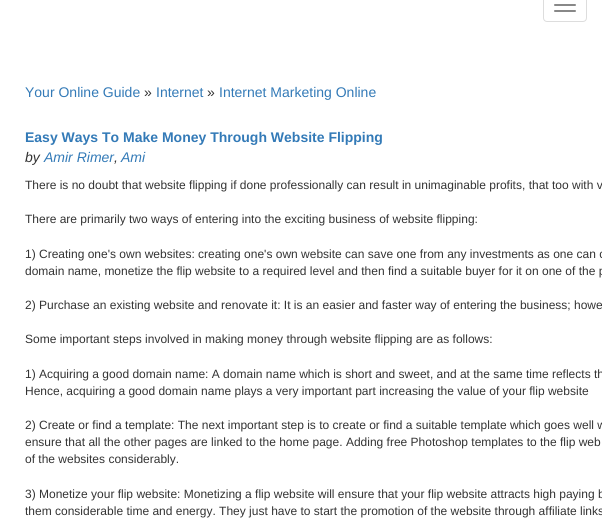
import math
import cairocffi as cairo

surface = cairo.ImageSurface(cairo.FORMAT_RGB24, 602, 525)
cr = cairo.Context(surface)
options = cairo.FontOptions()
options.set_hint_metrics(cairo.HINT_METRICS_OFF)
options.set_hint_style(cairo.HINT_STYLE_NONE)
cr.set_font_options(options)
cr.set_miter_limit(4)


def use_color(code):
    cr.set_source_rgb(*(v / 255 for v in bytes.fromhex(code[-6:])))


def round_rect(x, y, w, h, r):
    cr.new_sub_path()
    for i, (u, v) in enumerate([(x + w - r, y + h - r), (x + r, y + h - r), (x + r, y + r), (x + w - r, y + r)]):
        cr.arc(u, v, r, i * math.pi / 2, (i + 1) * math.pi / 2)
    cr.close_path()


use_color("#ffffff")
cr.paint()
round_rect(543.5, -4.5, 43, 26, 3.5)
use_color("#dddddd")
cr.set_line_width(1)
cr.stroke()
use_color("#888888")
round_rect(554, 4, 22, 2, 1)
cr.fill()
round_rect(554, 10, 22, 2, 1)
cr.fill()
cr.select_font_face("Liberation Sans")
cr.set_font_size(14)
use_color("#337ab7")
cr.move_to(25, 97)
cr.show_text("Your Online Guide")
use_color("#333333")
cr.move_to(144, 97)
cr.show_text("»")
use_color("#337ab7")
cr.move_to(156, 97)
cr.show_text("Internet")
use_color("#333333")
cr.move_to(207, 97)
cr.show_text("»")
use_color("#337ab7")
cr.move_to(219, 97)
cr.show_text("Internet Marketing Online")
cr.select_font_face("Liberation Sans", cairo.FONT_SLANT_NORMAL, cairo.FONT_WEIGHT_BOLD)
cr.move_to(25, 142)
cr.show_text("Easy Ways To Make Money Through Website Flipping")
cr.select_font_face("Liberation Sans", cairo.FONT_SLANT_ITALIC)
use_color("#333333")
cr.move_to(25, 162)
cr.show_text("by")
use_color("#337ab7")
cr.move_to(44, 162)
cr.show_text("Amir Rimer")
cr.move_to(121, 162)
cr.show_text("Ami")
use_color("#333333")
cr.move_to(114, 162)
cr.show_text(",")
cr.select_font_face("Liberation Sans")
cr.set_font_size(12)
cr.move_to(25, 189)
cr.show_text("There is no doubt that website flipping if done professionally can result in unimaginable profits, that too with v")
cr.move_to(25, 223)
cr.show_text("There are primarily two ways of entering into the exciting business of website flipping:")
cr.move_to(25, 258)
cr.show_text("1) Creating one's own websites: creating one's own website can save one from any investments as one can c")
cr.move_to(25, 275)
cr.show_text("domain name, monetize the flip website to a required level and then find a suitable buyer for it on one of the p")
cr.move_to(25, 309)
cr.show_text("2) Purchase an existing website and renovate it: It is an easier and faster way of entering the business; howe")
cr.move_to(25, 343)
cr.show_text("Some important steps involved in making money through website flipping are as follows:")
cr.move_to(25, 378)
cr.show_text("1) Acquiring a good domain name: A domain name which is short and sweet, and at the same time reflects th")
cr.move_to(25, 395)
cr.show_text("Hence, acquiring a good domain name plays a very important part increasing the value of your flip website")
cr.move_to(25, 429)
cr.show_text("2) Create or find a template: The next important step is to create or find a suitable template which goes well w")
cr.move_to(25, 446)
cr.show_text("ensure that all the other pages are linked to the home page. Adding free Photoshop templates to the flip web")
cr.move_to(25, 463)
cr.show_text("of the websites considerably.")
cr.move_to(25, 498)
cr.show_text("3) Monetize your flip website: Monetizing a flip website will ensure that your flip website attracts high paying b")
cr.move_to(25, 515)
cr.show_text("them considerable time and energy. They just have to start the promotion of the website through affiliate links")
surface.write_to_png("result.png")
